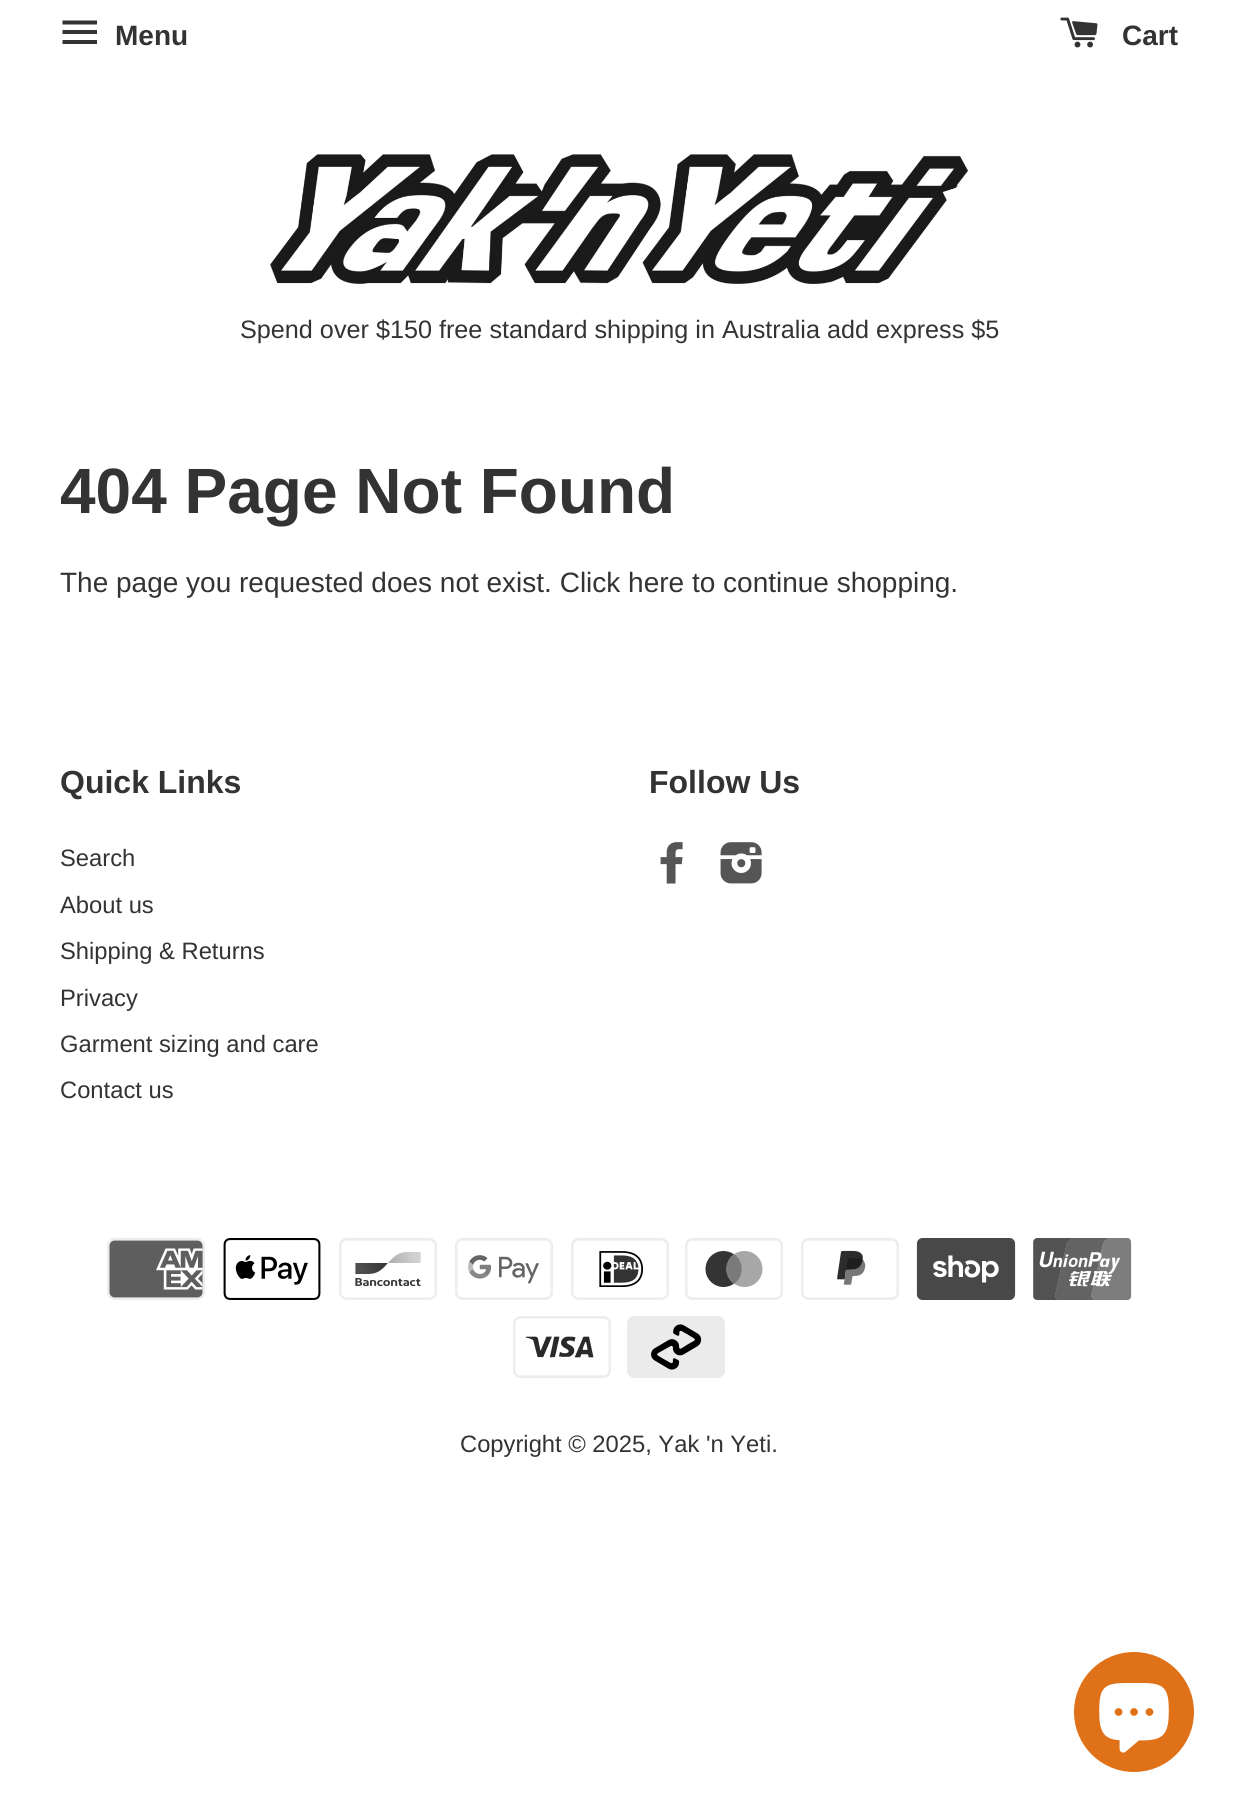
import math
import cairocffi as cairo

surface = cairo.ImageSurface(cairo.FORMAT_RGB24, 1237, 1814)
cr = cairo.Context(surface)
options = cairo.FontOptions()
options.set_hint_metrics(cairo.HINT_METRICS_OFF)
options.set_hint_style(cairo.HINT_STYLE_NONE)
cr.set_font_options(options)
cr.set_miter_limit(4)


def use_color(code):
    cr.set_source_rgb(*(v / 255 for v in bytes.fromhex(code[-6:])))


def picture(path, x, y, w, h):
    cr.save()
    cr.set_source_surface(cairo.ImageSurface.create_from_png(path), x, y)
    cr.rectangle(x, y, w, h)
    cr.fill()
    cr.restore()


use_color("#ffffff")
cr.paint()
use_color("#333333")
cr.new_path()
cr.move_to(62.5, 20.5)
cr.line_to(97, 20.5)
cr.line_to(97, 24.5)
cr.line_to(62.5, 24.5)
cr.close_path()
cr.move_to(62.5, 30)
cr.line_to(97, 30)
cr.line_to(97, 34)
cr.line_to(62.5, 34)
cr.close_path()
cr.move_to(62.5, 40)
cr.line_to(97, 40)
cr.line_to(97, 44)
cr.line_to(62.5, 44)
cr.close_path()
cr.fill()
cr.select_font_face("Liberation Sans", cairo.FONT_SLANT_NORMAL, cairo.FONT_WEIGHT_BOLD)
cr.set_font_size(28)
cr.move_to(115, 45)
cr.show_text("Menu")
picture("img1.png", 1060, 17, 38, 31)
cr.move_to(1122, 45)
cr.show_text("Cart")
picture("img2.png", 270, 154, 698, 130)
cr.select_font_face("Liberation Sans")
cr.set_font_size(25.2)
cr.move_to(240, 338)
cr.show_text("Spend over $150 free standard shipping in Australia add express $5")
cr.select_font_face("Liberation Sans", cairo.FONT_SLANT_NORMAL, cairo.FONT_WEIGHT_BOLD)
cr.set_font_size(64)
cr.move_to(60, 513)
cr.show_text("404 Page Not Found")
cr.select_font_face("Liberation Sans")
cr.set_font_size(28)
cr.move_to(60, 592)
cr.show_text("The page you requested does not exist. Click here to continue shopping.")
cr.select_font_face("Liberation Sans", cairo.FONT_SLANT_NORMAL, cairo.FONT_WEIGHT_BOLD)
cr.set_font_size(32)
cr.move_to(60, 793)
cr.show_text("Quick Links")
cr.select_font_face("Liberation Sans")
cr.set_font_size(23.75)
cr.move_to(60, 866)
cr.show_text("Search")
cr.move_to(60, 913)
cr.show_text("About us")
cr.move_to(60, 959)
cr.show_text("Shipping & Returns")
cr.move_to(60, 1006)
cr.show_text("Privacy")
cr.move_to(60, 1052)
cr.show_text("Garment sizing and care")
cr.move_to(60, 1098)
cr.show_text("Contact us")
cr.select_font_face("Liberation Sans", cairo.FONT_SLANT_NORMAL, cairo.FONT_WEIGHT_BOLD)
cr.set_font_size(32)
cr.move_to(649, 793)
cr.show_text("Follow Us")
picture("img3.png", 660, 842, 23, 42)
picture("img4.png", 720, 842, 42, 42)
picture("img5.png", 107, 1238, 98, 62)
picture("img6.png", 223, 1238, 98, 62)
picture("img7.png", 339, 1238, 98, 62)
picture("img8.png", 455, 1238, 98, 62)
picture("img9.png", 571, 1238, 98, 62)
picture("img10.png", 685, 1238, 98, 62)
picture("img11.png", 801, 1238, 98, 62)
picture("img12.png", 916, 1238, 100, 62)
picture("img13.png", 1033, 1238, 99, 62)
picture("img14.png", 513, 1316, 98, 62)
picture("img15.png", 627, 1316, 98, 62)
cr.select_font_face("Liberation Sans")
cr.set_font_size(23.75)
cr.move_to(460, 1452)
cr.show_text("Copyright © 2025, Yak 'n Yeti.")
use_color("#df7219")
cr.new_path()
cr.arc(1134, 1712, 60, 0, 2 * math.pi)
cr.fill()
picture("img16.png", 1099, 1683, 70, 70)
surface.write_to_png("result.png")
